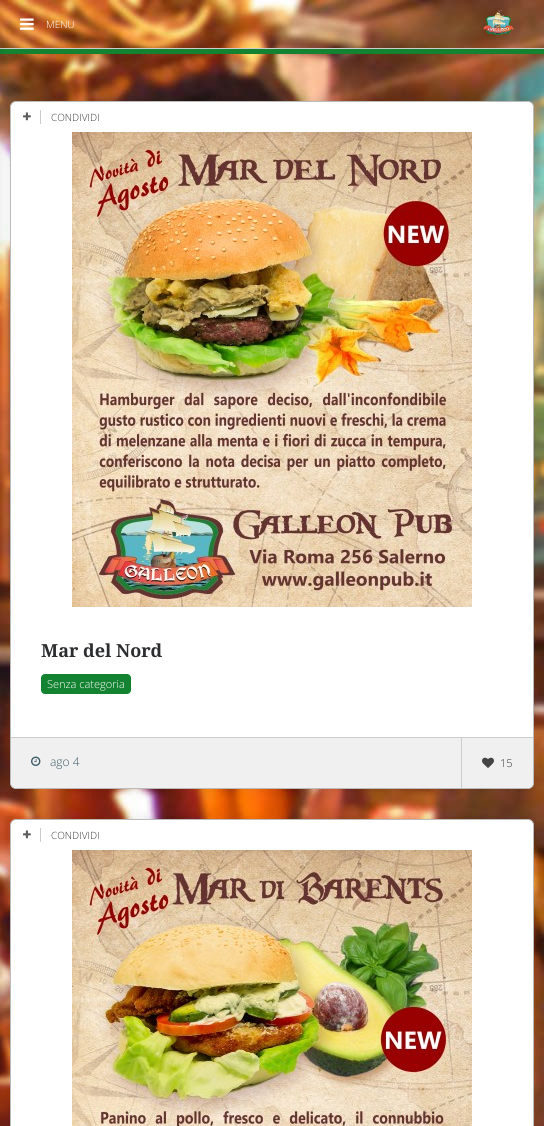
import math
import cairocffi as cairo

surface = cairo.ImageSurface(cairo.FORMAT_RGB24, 544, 1126)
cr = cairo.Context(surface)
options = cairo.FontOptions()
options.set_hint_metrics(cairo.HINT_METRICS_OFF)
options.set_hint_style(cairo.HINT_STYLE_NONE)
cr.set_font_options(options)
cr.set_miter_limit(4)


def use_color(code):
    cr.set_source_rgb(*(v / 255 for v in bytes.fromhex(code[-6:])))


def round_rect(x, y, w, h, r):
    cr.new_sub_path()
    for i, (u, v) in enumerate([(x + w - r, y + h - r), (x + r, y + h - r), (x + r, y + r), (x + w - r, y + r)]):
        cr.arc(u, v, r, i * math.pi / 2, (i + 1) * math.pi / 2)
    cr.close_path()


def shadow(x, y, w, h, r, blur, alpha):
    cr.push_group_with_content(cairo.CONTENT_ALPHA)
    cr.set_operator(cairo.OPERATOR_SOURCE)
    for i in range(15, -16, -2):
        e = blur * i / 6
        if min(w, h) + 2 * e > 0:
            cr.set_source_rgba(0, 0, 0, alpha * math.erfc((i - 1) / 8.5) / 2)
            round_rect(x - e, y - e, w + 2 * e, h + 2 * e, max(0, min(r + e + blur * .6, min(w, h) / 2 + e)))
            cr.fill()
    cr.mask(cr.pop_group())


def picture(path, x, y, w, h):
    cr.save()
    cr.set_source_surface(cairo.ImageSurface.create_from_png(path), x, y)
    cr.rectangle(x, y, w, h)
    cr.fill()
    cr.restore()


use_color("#ffffff")
cr.paint()
picture("img1.png", 0, 0, 544, 1126)
use_color("#cccccc")
cr.rectangle(0, 48, 544, 1)
cr.fill()
use_color("#138331")
cr.rectangle(0, 49, 544, 5)
cr.fill()
use_color("#000000")
shadow(10, 101, 524, 688, 6, 6, 0.1)
use_color("#ffffff")
round_rect(10.5, 101.5, 523, 687, 5.5)
cr.fill_preserve()
use_color("#bbbbbb")
cr.set_line_width(1)
cr.stroke()
use_color("#f0f0f0")
cr.new_path()
cr.move_to(11, 737)
cr.line_to(533, 737)
cr.line_to(533, 782)
cr.curve_to(533, 785.5, 530.5, 788, 527, 788)
cr.line_to(17, 788)
cr.curve_to(13.5, 788, 11, 785.5, 11, 782)
cr.close_path()
cr.fill()
use_color("#cccccc")
cr.rectangle(11, 737, 522, 1)
cr.fill()
use_color("#000000")
shadow(10, 819, 524, 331, 6, 6, 0.1)
use_color("#ffffff")
round_rect(10.5, 819.5, 523, 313, 5.5)
cr.fill_preserve()
use_color("#bbbbbb")
cr.stroke()
use_color("#000000")
shadow(-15, 0, 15, 1126, 0, 5, 0.1)
picture("img2.png", 20, 18, 14, 12)
cr.select_font_face("Open Sans Light")
cr.set_font_size(10)
use_color("#ffffff")
cr.move_to(46, 28)
cr.show_text("MENU")
picture("img3.png", 483, 10, 31, 25)
picture("img4.png", 23, 112, 8, 9)
use_color("#3d3d3d")
cr.move_to(51, 121)
cr.show_text("CONDIVIDI")
use_color("#cccccc")
cr.rectangle(40, 110, 1, 14)
cr.fill()
picture("img5.png", 72, 132, 400, 475)
cr.select_font_face("Droid Serif", cairo.FONT_SLANT_NORMAL, cairo.FONT_WEIGHT_BOLD)
cr.set_font_size(18)
use_color("#2c2d2f")
cr.move_to(41, 657)
cr.show_text("Mar del Nord")
use_color("#138331")
round_rect(41.5, 674.5, 89, 19, 3.5)
cr.fill_preserve()
cr.stroke()
cr.select_font_face("Open Sans Light")
cr.set_font_size(11)
use_color("#ffffff")
cr.move_to(47, 688)
cr.show_text("Senza categoria")
picture("img6.png", 31, 756, 10, 10)
cr.set_font_size(12)
use_color("#3c5b68")
cr.move_to(50, 766)
cr.show_text("ago 4")
use_color("#cccccc")
cr.rectangle(461, 738, 1, 50)
cr.fill()
picture("img7.png", 482, 757, 12, 11)
cr.set_font_size(11)
use_color("#333333")
cr.move_to(500, 767)
cr.show_text("15")
picture("img4.png", 23, 830, 8, 9)
cr.set_font_size(10)
use_color("#3d3d3d")
cr.move_to(51, 839)
cr.show_text("CONDIVIDI")
use_color("#cccccc")
cr.rectangle(40, 828, 1, 14)
cr.fill()
picture("img8.png", 72, 850, 400, 276)
surface.write_to_png("result.png")
